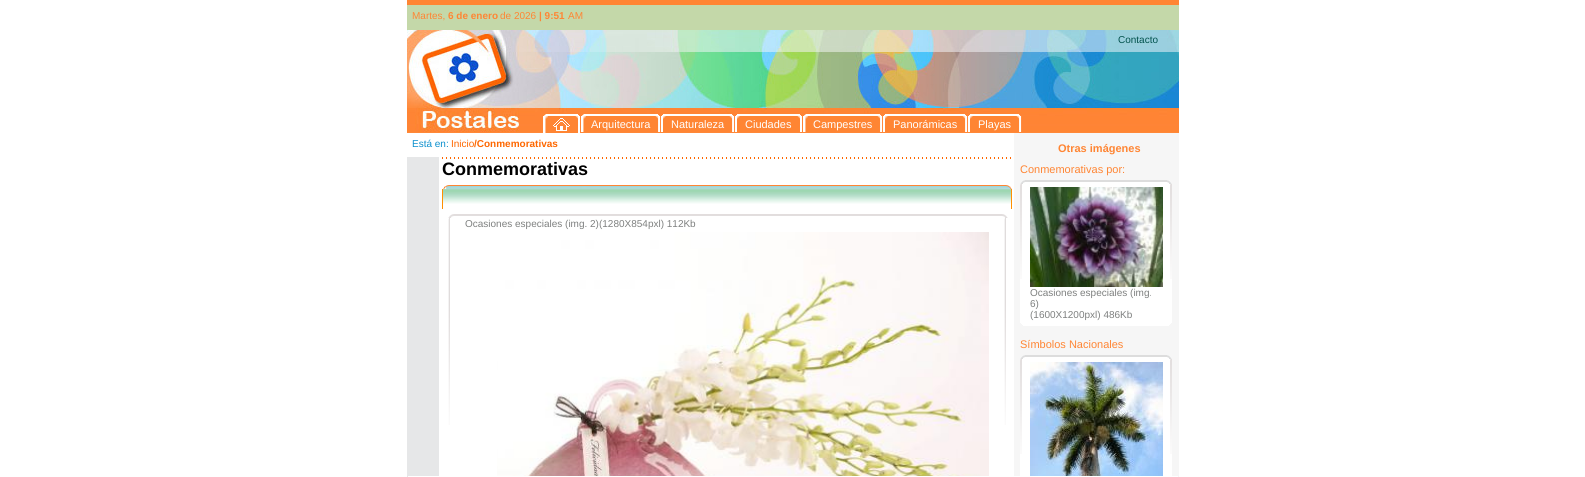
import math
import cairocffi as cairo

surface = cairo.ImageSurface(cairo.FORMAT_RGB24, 1585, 477)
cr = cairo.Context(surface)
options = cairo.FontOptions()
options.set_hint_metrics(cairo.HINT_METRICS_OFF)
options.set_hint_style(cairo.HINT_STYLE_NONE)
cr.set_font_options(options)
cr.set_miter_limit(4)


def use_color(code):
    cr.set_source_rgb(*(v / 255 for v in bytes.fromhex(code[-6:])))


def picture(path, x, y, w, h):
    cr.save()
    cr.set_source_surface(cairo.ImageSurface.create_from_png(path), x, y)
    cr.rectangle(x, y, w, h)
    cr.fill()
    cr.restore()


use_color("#ffffff")
cr.paint()
use_color("#ff8533")
cr.rectangle(407, 0, 772, 5)
cr.fill()
use_color("#c4d8a9")
cr.rectangle(407, 5, 772, 25)
cr.fill()
cr.select_font_face("Liberation Sans")
cr.set_font_size(10)
use_color("#ff8533")
cr.move_to(412, 19)
cr.show_text("Martes,")
cr.select_font_face("Liberation Sans", cairo.FONT_SLANT_NORMAL, cairo.FONT_WEIGHT_BOLD)
cr.move_to(448, 19)
cr.show_text("6 de enero")
cr.select_font_face("Liberation Sans")
cr.move_to(500, 19)
cr.show_text("de 2026")
cr.select_font_face("Liberation Sans", cairo.FONT_SLANT_NORMAL, cairo.FONT_WEIGHT_BOLD)
cr.move_to(539, 19)
cr.show_text("| 9:51")
cr.select_font_face("Liberation Sans")
cr.move_to(568, 19)
cr.show_text("AM")
picture("img1.png", 407, 30, 772, 22)
use_color("#01524d")
cr.move_to(1118, 43)
cr.show_text("Contacto")
picture("img2.png", 407, 52, 136, 81)
picture("img3.png", 543, 52, 636, 81)
picture("img4.png", 543, 114, 5, 19)
picture("img5.png", 548, 114, 32, 19)
picture("img6.png", 553, 118, 17, 13)
picture("img7.png", 581, 114, 5, 18)
picture("img8.png", 586, 114, 75, 18)
cr.set_font_size(11)
use_color("#ffffff")
cr.move_to(591, 128)
cr.show_text("Arquitectura")
picture("img9.png", 661, 114, 5, 18)
picture("img10.png", 666, 114, 69, 18)
cr.move_to(671, 128)
cr.show_text("Naturaleza")
picture("img11.png", 735, 114, 5, 18)
picture("img12.png", 740, 114, 62, 18)
cr.move_to(745, 128)
cr.show_text("Ciudades")
picture("img13.png", 803, 114, 5, 18)
picture("img8.png", 808, 114, 75, 18)
cr.move_to(813, 128)
cr.show_text("Campestres")
picture("img9.png", 883, 114, 5, 18)
picture("img14.png", 888, 114, 80, 18)
cr.move_to(893, 128)
cr.show_text("Panorámicas")
picture("img9.png", 968, 114, 5, 18)
picture("img15.png", 973, 114, 49, 18)
cr.move_to(978, 128)
cr.show_text("Playas")
picture("img16.png", 407, 133, 772, 344)
cr.rectangle(407, 133, 32, 24)
cr.fill()
cr.set_font_size(10)
use_color("#0b8fcd")
cr.move_to(412, 147)
cr.show_text("Está en:")
use_color("#fe6700")
cr.move_to(451, 147)
cr.show_text("Inicio")
cr.select_font_face("Liberation Sans", cairo.FONT_SLANT_NORMAL, cairo.FONT_WEIGHT_BOLD)
cr.move_to(474, 147)
cr.show_text("/Conmemorativas")
picture("img17.png", 442, 157, 569, 2)
cr.set_font_size(18)
use_color("#000000")
cr.move_to(442, 175)
cr.show_text("Conmemorativas")
picture("img18.png", 443, 185, 569, 4)
picture("img19.png", 443, 189, 568, 15)
use_color("#ff9001")
cr.rectangle(1011, 189, 1, 20)
cr.fill()
cr.rectangle(442, 189, 1, 20)
cr.fill()
picture("img20.png", 448, 214, 560, 4)
picture("img21.png", 448, 218, 2, 207)
cr.select_font_face("Liberation Sans")
cr.set_font_size(10)
use_color("#7e807f")
cr.move_to(465, 227)
cr.show_text("Ocasiones especiales (img. 2)(1280X854pxl) 112Kb")
picture("img22.png", 497, 232, 492, 244)
picture("img21.png", 1004, 218, 2, 207)
cr.select_font_face("Liberation Sans", cairo.FONT_SLANT_NORMAL, cairo.FONT_WEIGHT_BOLD)
cr.set_font_size(11)
use_color("#ff8533")
cr.move_to(1058, 152)
cr.show_text("Otras imágenes")
cr.select_font_face("Liberation Sans")
cr.move_to(1020, 173)
cr.show_text("Conmemorativas por:")
use_color("#ffffff")
cr.rectangle(1020, 184, 152, 139)
cr.fill()
picture("img23.png", 1020, 180, 152, 4)
picture("img24.png", 1020, 184, 2, 95)
picture("img24.png", 1170, 184, 2, 95)
picture("img25.png", 1030, 187, 133, 100)
cr.set_font_size(10)
use_color("#7e807f")
cr.move_to(1030, 296)
cr.show_text("Ocasiones especiales (img.")
cr.move_to(1030, 307)
cr.show_text("6)")
cr.move_to(1030, 318)
cr.show_text("(1600X1200pxl) 486Kb")
picture("img26.png", 1020, 323, 152, 3)
cr.set_font_size(11)
use_color("#ff8533")
cr.move_to(1020, 348)
cr.show_text("Símbolos Nacionales")
use_color("#ffffff")
cr.rectangle(1020, 359, 152, 117)
cr.fill()
picture("img23.png", 1020, 355, 152, 4)
picture("img24.png", 1020, 359, 2, 95)
picture("img27.png", 1030, 362, 133, 114)
picture("img24.png", 1170, 359, 2, 95)
cr.rectangle(408, 476, 770, 1)
cr.fill()
surface.write_to_png("result.png")
